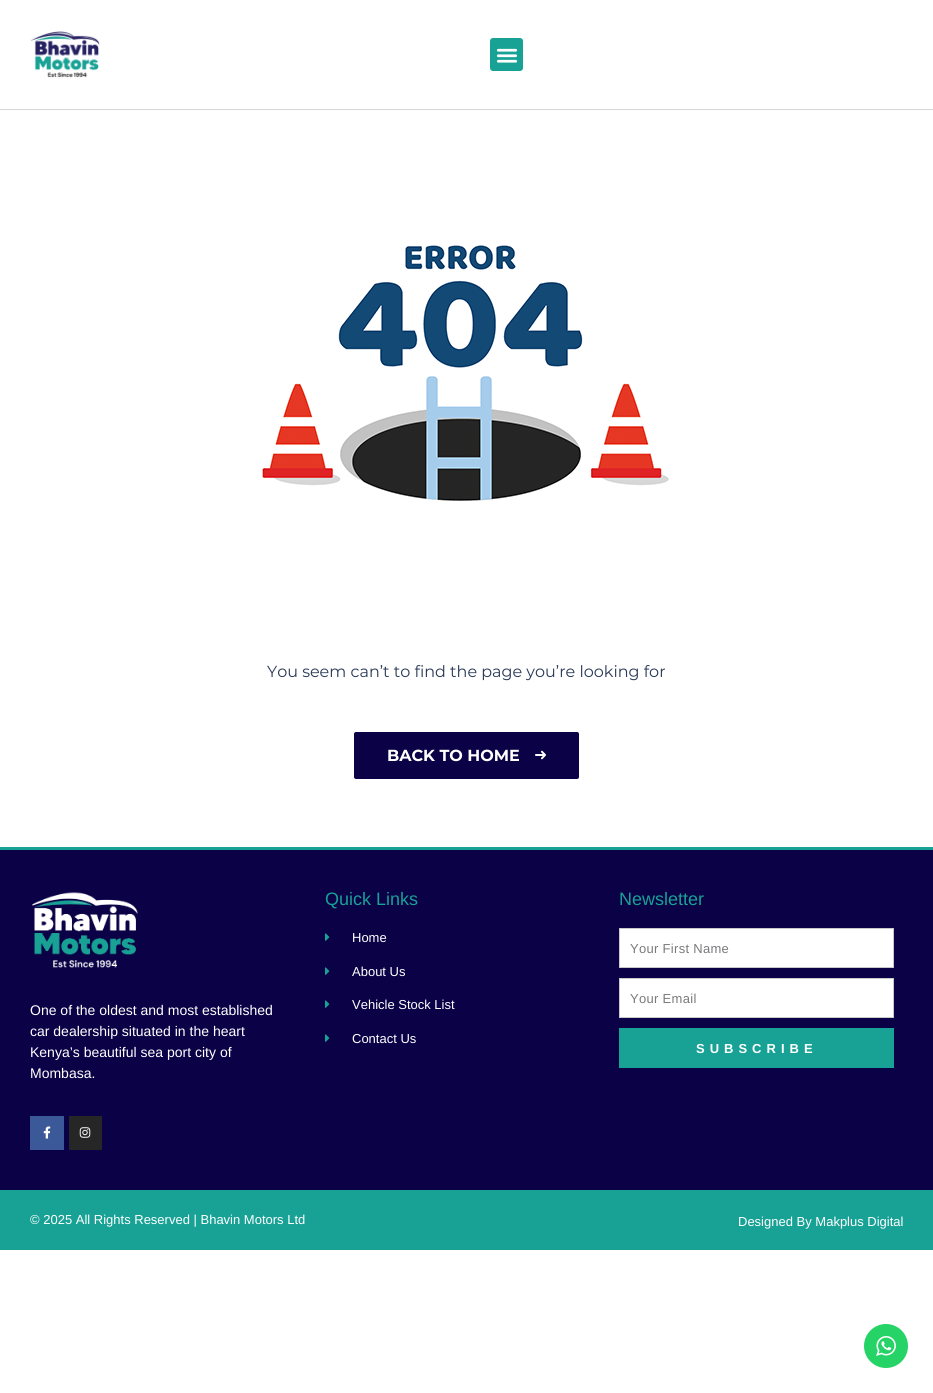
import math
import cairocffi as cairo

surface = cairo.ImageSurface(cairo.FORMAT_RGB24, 933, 1393)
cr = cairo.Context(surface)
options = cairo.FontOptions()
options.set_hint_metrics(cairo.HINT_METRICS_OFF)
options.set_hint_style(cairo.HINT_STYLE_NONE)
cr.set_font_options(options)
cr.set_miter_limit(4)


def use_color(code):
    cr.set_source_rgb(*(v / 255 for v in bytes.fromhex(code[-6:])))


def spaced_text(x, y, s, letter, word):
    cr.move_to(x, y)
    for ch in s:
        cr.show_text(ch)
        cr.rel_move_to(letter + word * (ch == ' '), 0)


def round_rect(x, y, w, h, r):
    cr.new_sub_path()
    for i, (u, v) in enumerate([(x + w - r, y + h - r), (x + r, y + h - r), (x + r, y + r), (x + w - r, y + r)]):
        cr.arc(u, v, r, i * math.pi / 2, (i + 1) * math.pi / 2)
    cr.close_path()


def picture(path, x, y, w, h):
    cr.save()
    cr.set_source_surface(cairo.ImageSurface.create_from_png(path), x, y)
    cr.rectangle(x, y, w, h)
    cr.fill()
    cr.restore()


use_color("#ffffff")
cr.paint()
use_color("#d6d6d6")
cr.rectangle(0, 109, 933, 1)
cr.fill()
picture("img1.png", 31, 31, 69, 47)
use_color("#18a195")
round_rect(490, 38, 33, 33, 3)
cr.fill()
picture("img2.png", 496, 48, 22, 15)
picture("img3.png", 262, 245, 407, 256)
cr.select_font_face("Montserrat")
cr.set_font_size(16)
use_color("#293957")
cr.move_to(267, 677)
cr.show_text("You seem can’t to find the page you’re looking for")
use_color("#0b0146")
round_rect(354, 732, 225, 47, 2)
cr.fill()
cr.select_font_face("Montserrat", cairo.FONT_SLANT_NORMAL, cairo.FONT_WEIGHT_BOLD)
use_color("#ffffff")
cr.move_to(387, 761)
cr.show_text("BACK TO HOME")
picture("img4.png", 535, 750, 11, 10)
use_color("#0b0146")
cr.rectangle(0, 850, 933, 340)
cr.fill()
use_color("#18a195")
cr.rectangle(0, 847, 933, 3)
cr.fill()
picture("img5.png", 32, 892, 106, 76)
cr.select_font_face("Liberation Sans")
cr.set_font_size(14)
use_color("#ffffff")
cr.move_to(30, 1015)
cr.show_text("One of the oldest and most established")
cr.move_to(30, 1036)
cr.show_text("car dealership situated in the heart")
cr.move_to(30, 1057)
cr.show_text("Kenya’s beautiful sea port city of")
cr.move_to(30, 1078)
cr.show_text("Mombasa.")
use_color("#3b5998")
cr.rectangle(30, 1116, 34, 34)
cr.fill()
picture("img6.png", 43, 1126, 8, 13)
use_color("#262626")
cr.rectangle(69, 1116, 33, 34)
cr.fill()
picture("img7.png", 79, 1127, 12, 11)
cr.set_font_size(18)
use_color("#18a195")
cr.move_to(325, 905)
cr.show_text("Quick Links")
picture("img8.png", 325, 933, 5, 8)
cr.set_font_size(13)
use_color("#ffffff")
cr.move_to(352, 942)
cr.show_text("Home")
picture("img8.png", 325, 967, 5, 8)
cr.move_to(352, 976)
cr.show_text("About Us")
picture("img8.png", 325, 1000, 5, 8)
cr.move_to(352, 1009)
cr.show_text("Vehicle Stock List")
picture("img8.png", 325, 1034, 5, 8)
cr.move_to(352, 1043)
cr.show_text("Contact Us")
cr.set_font_size(18)
use_color("#18a195")
cr.move_to(619, 905)
cr.show_text("Newsletter")
use_color("#ffffff")
cr.rectangle(619.5, 928.5, 274, 39)
cr.fill_preserve()
use_color("#c9c9c9")
cr.set_line_width(1)
cr.stroke()
cr.set_font_size(13)
use_color("#797a7c")
spaced_text(630, 953, "Your First Name", 0.3, 0)
use_color("#ffffff")
cr.rectangle(619.5, 978.5, 274, 39)
cr.fill_preserve()
use_color("#c9c9c9")
cr.stroke()
use_color("#797a7c")
spaced_text(630, 1003, "Your Email", 0.3, 0)
use_color("#18a195")
cr.rectangle(619, 1028, 275, 40)
cr.fill()
cr.select_font_face("Liberation Sans", cairo.FONT_SLANT_NORMAL, cairo.FONT_WEIGHT_BOLD)
use_color("#ffffff")
spaced_text(696, 1053, "SUBSCRIBE", 5, 0)
use_color("#18a195")
cr.rectangle(0, 1190, 933, 60)
cr.fill()
cr.select_font_face("Liberation Sans")
use_color("#ffffff")
cr.move_to(30, 1224)
cr.show_text("© 2025 All Rights Reserved | Bhavin Motors Ltd")
cr.move_to(738, 1226)
cr.show_text("Designed By Makplus Digital")
use_color("#25d366")
cr.new_path()
cr.arc(886, 1346, 22, 0, 2 * math.pi)
cr.fill()
picture("img9.png", 876, 1336, 20, 20)
surface.write_to_png("result.png")
